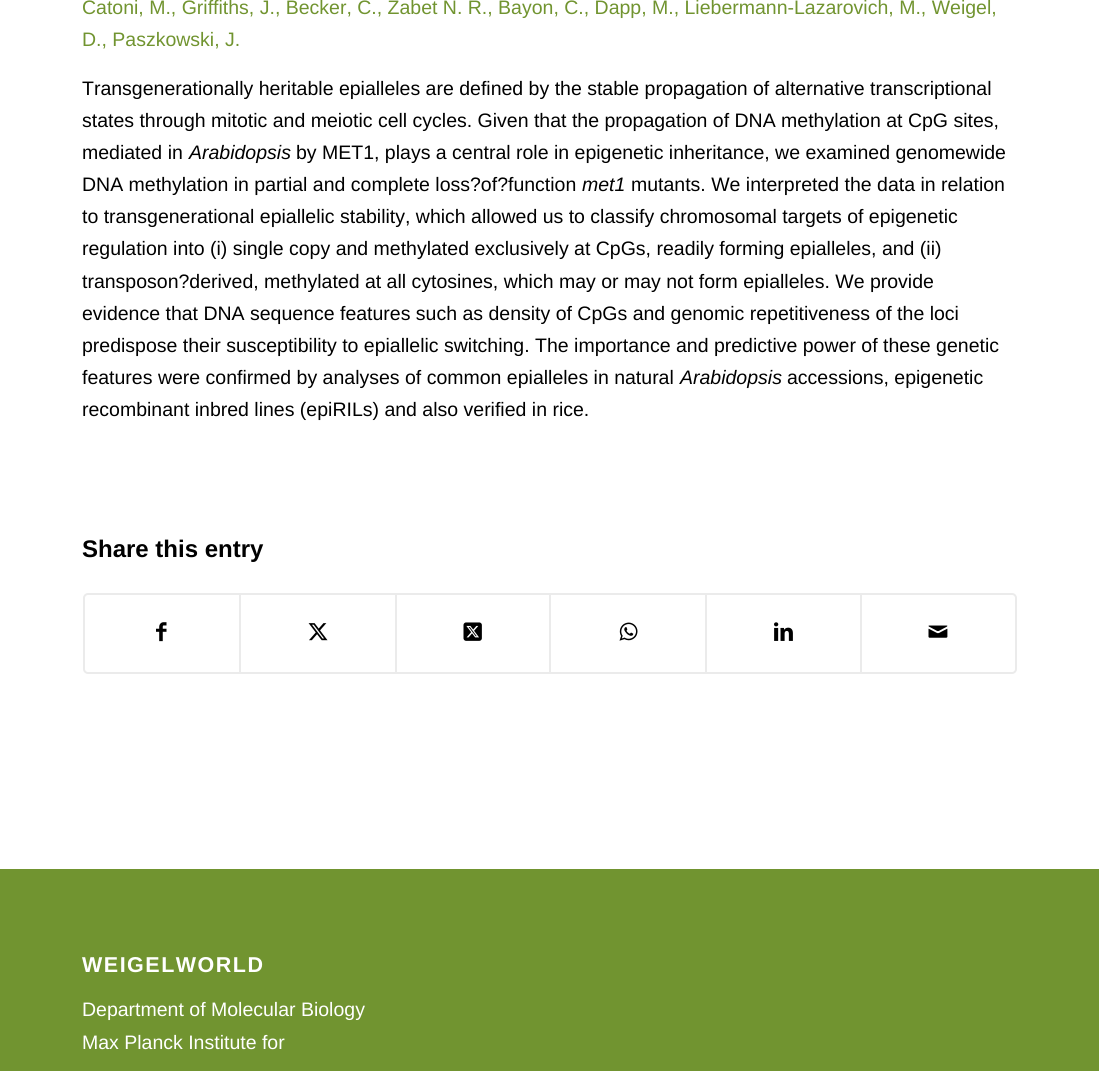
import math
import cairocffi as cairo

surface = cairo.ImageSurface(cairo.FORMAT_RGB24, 1099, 1071)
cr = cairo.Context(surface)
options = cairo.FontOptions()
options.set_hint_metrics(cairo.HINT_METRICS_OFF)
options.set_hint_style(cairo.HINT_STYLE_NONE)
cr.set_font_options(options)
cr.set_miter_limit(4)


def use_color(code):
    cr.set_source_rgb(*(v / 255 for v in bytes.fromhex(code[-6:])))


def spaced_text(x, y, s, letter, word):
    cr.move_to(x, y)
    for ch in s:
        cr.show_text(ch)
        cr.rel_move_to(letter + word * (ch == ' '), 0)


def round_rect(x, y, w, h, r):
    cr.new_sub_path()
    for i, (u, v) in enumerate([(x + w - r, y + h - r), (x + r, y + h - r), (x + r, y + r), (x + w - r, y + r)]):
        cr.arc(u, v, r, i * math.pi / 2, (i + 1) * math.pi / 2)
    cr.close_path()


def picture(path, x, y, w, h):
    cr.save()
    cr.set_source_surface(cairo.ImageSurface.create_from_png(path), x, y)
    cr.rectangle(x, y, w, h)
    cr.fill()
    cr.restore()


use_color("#ffffff")
cr.paint()
cr.select_font_face("Liberation Sans")
cr.set_font_size(19.5)
use_color("#719430")
cr.move_to(82, 14)
cr.show_text("Catoni, M., Griffiths, J., Becker, C., Zabet N. R., Bayon, C., Dapp, M., Liebermann-Lazarovich, M., Weigel,")
cr.move_to(82, 46)
cr.show_text("D., Paszkowski, J.")
use_color("#000000")
cr.move_to(82, 95)
cr.show_text("Transgenerationally heritable epialleles are defined by the stable propagation of alternative transcriptional")
cr.move_to(82, 127)
cr.show_text("states through mitotic and meiotic cell cycles. Given that the propagation of DNA methylation at CpG sites,")
cr.move_to(82, 159)
cr.show_text("mediated in")
cr.select_font_face("Liberation Sans", cairo.FONT_SLANT_ITALIC)
cr.move_to(189, 159)
cr.show_text("Arabidopsis")
cr.select_font_face("Liberation Sans")
cr.move_to(296, 159)
cr.show_text("by MET1, plays a central role in epigenetic inheritance, we examined genomewide")
cr.move_to(82, 191)
cr.show_text("DNA methylation in partial and complete loss?of?function")
cr.select_font_face("Liberation Sans", cairo.FONT_SLANT_ITALIC)
cr.move_to(582, 191)
cr.show_text("met1")
cr.select_font_face("Liberation Sans")
cr.move_to(631, 191)
cr.show_text("mutants. We interpreted the data in relation")
cr.move_to(82, 223)
cr.show_text("to transgenerational epiallelic stability, which allowed us to classify chromosomal targets of epigenetic")
cr.move_to(82, 255)
cr.show_text("regulation into (i) single copy and methylated exclusively at CpGs, readily forming epialleles, and (ii)")
cr.move_to(82, 288)
cr.show_text("transposon?derived, methylated at all cytosines, which may or may not form epialleles. We provide")
cr.move_to(82, 320)
cr.show_text("evidence that DNA sequence features such as density of CpGs and genomic repetitiveness of the loci")
cr.move_to(82, 352)
cr.show_text("predispose their susceptibility to epiallelic switching. The importance and predictive power of these genetic")
cr.move_to(82, 384)
cr.show_text("features were confirmed by analyses of common epialleles in natural")
cr.select_font_face("Liberation Sans", cairo.FONT_SLANT_ITALIC)
cr.move_to(680, 384)
cr.show_text("Arabidopsis")
cr.select_font_face("Liberation Sans")
cr.move_to(787, 384)
cr.show_text("accessions, epigenetic")
cr.move_to(82, 416)
cr.show_text("recombinant inbred lines (epiRILs) and also verified in rice.")
cr.select_font_face("Liberation Sans", cairo.FONT_SLANT_NORMAL, cairo.FONT_WEIGHT_BOLD)
cr.set_font_size(24)
cr.move_to(82, 557)
cr.show_text("Share this entry")
round_rect(84, 594, 932, 79, 4)
use_color("#ebebeb")
cr.stroke()
picture("img1.png", 156, 622, 11, 20)
cr.rectangle(239, 594, 2, 78)
cr.fill()
picture("img2.png", 308, 623, 20, 18)
cr.rectangle(395, 594, 2, 78)
cr.fill()
picture("img3.png", 463, 622, 19, 19)
cr.rectangle(549, 594, 2, 78)
cr.fill()
picture("img4.png", 619, 622, 19, 19)
cr.rectangle(705, 594, 2, 78)
cr.fill()
picture("img5.png", 774, 622, 19, 19)
cr.rectangle(860, 594, 2, 78)
cr.fill()
picture("img6.png", 928, 625, 20, 13)
use_color("#719430")
cr.rectangle(0, 869, 1099, 202)
cr.fill()
cr.set_font_size(21.5)
use_color("#ffffff")
spaced_text(82, 972, "WEIGELWORLD", 1.5, 0)
cr.select_font_face("Liberation Sans")
cr.set_font_size(19.5)
cr.move_to(82, 1016)
cr.show_text("Department of Molecular Biology")
cr.move_to(82, 1049)
cr.show_text("Max Planck Institute for")
surface.write_to_png("result.png")
